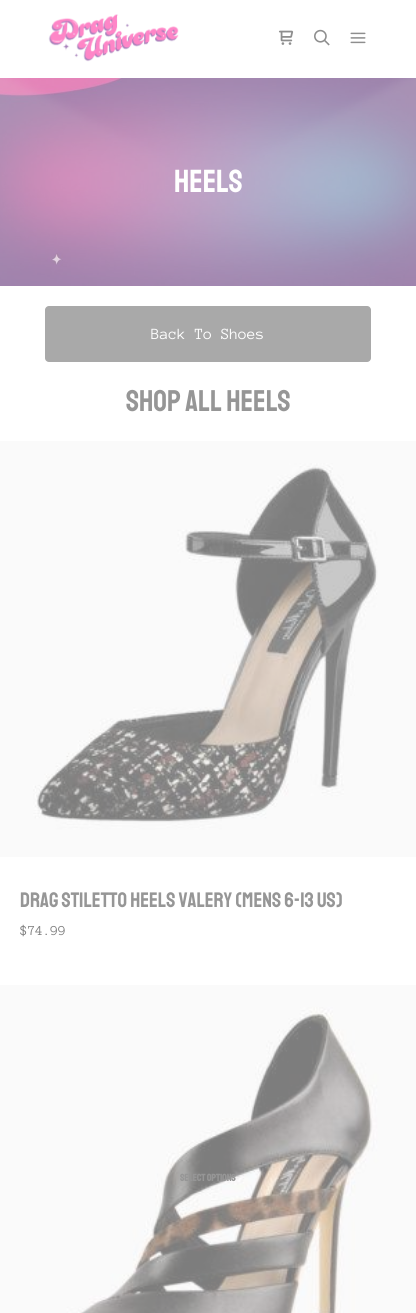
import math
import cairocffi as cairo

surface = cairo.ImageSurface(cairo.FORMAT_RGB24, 416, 1313)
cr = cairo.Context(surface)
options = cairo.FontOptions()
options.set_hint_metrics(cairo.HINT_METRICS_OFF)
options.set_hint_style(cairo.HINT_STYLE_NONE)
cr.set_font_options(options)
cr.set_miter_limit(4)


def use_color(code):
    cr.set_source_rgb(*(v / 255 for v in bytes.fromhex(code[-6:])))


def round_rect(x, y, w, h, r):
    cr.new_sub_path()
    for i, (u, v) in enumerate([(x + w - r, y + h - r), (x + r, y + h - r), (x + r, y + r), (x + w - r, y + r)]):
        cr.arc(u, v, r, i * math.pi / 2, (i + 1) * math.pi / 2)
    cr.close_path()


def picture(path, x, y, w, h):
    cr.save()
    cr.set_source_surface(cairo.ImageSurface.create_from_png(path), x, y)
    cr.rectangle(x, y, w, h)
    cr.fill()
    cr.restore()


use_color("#ffffff")
cr.paint()
picture("img1.png", 48, 14, 131, 48)
picture("img2.png", 278, 30, 16, 15)
picture("img3.png", 314, 29, 16, 17)
picture("img4.png", 350, 32, 16, 12)
picture("img5.png", 0, 78, 416, 208)
cr.select_font_face("Staatliches")
cr.set_font_size(32)
use_color("#ffffff")
cr.move_to(174, 192)
cr.show_text("HEELS")
use_color("#a9a9a9")
round_rect(45, 306, 326, 56, 4)
cr.fill()
cr.select_font_face("Anonymous Pro")
cr.set_font_size(16)
use_color("#ffffff")
cr.move_to(151, 339)
cr.show_text("Back To Shoes")
cr.select_font_face("Staatliches")
cr.set_font_size(30)
use_color("#969696")
cr.move_to(126, 411)
cr.show_text("SHOP ALL HEELS")
picture("img6.png", 0, 441, 416, 416)
cr.set_font_size(21)
cr.move_to(20, 907)
cr.show_text("DRAG STILETTO HEELS VALERY (MENS 6-13 US)")
cr.select_font_face("Anonymous Pro")
cr.set_font_size(14)
use_color("#7d7d7d")
cr.move_to(20, 935)
cr.show_text("$74.99")
picture("img7.png", 0, 985, 416, 328)
cr.select_font_face("Staatliches", cairo.FONT_SLANT_NORMAL, cairo.FONT_WEIGHT_BOLD)
cr.set_font_size(10)
use_color("#969696")
cr.move_to(180, 1181)
cr.show_text("Select options")
surface.write_to_png("result.png")
